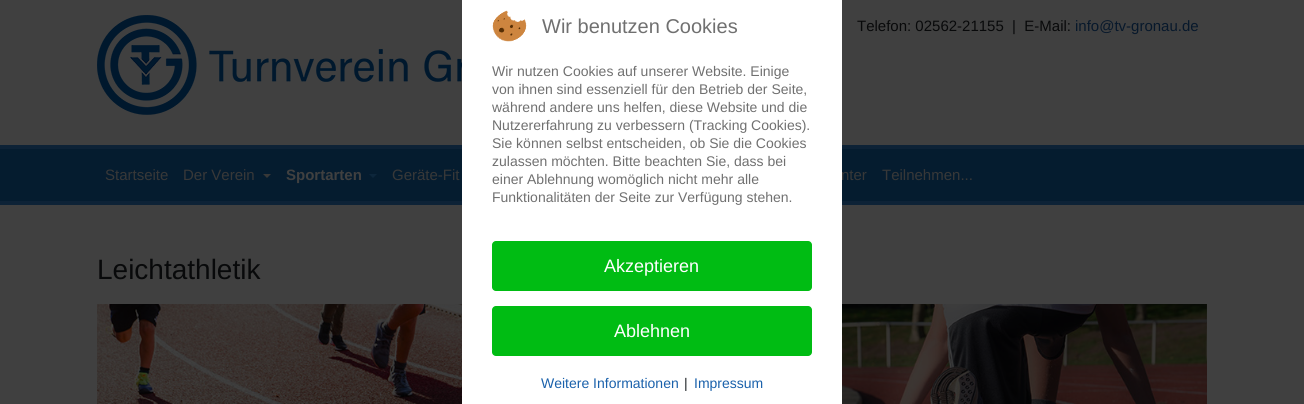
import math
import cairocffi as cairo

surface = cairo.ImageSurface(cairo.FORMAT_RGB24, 1304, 404)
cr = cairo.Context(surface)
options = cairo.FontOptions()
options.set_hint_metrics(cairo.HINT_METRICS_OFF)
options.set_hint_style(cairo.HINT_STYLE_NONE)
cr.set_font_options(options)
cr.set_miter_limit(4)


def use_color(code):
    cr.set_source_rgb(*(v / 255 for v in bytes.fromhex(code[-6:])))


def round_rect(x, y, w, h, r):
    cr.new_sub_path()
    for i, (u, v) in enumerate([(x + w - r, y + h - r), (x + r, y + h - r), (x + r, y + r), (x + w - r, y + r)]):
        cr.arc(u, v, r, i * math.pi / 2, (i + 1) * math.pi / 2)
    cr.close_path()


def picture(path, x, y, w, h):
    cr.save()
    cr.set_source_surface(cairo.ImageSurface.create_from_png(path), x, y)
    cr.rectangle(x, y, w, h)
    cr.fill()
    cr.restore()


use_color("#404040")
cr.paint()
use_color("#051c2f")
cr.rectangle(0, 149, 1304, 52)
cr.fill()
use_color("#0d2236")
cr.rectangle(0, 145, 1304, 4)
cr.fill()
cr.rectangle(0, 201, 1304, 4)
cr.fill()
cr.select_font_face("Liberation Sans")
cr.set_font_size(15)
use_color("#383838")
cr.move_to(841, 180)
cr.show_text("nter")
picture("img3.png", 97, 304, 1110, 100)
use_color("#ffffff")
cr.rectangle(462, 0, 380, 404)
cr.fill()
picture("img1.png", 492, 10, 35, 32)
cr.set_font_size(20)
use_color("#707070")
cr.move_to(542, 33)
cr.show_text("Wir benutzen Cookies")
cr.set_font_size(14)
cr.move_to(492, 76)
cr.show_text("Wir nutzen Cookies auf unserer Website. Einige")
cr.move_to(492, 94)
cr.show_text("von ihnen sind essenziell für den Betrieb der Seite,")
cr.move_to(492, 112)
cr.show_text("während andere uns helfen, diese Website und die")
cr.move_to(492, 130)
cr.show_text("Nutzererfahrung zu verbessern (Tracking Cookies).")
cr.move_to(492, 148)
cr.show_text("Sie können selbst entscheiden, ob Sie die Cookies")
cr.move_to(492, 166)
cr.show_text("zulassen möchten. Bitte beachten Sie, dass bei")
cr.move_to(492, 184)
cr.show_text("einer Ablehnung womöglich nicht mehr alle")
cr.move_to(492, 202)
cr.show_text("Funktionalitäten der Seite zur Verfügung stehen.")
use_color("#00bc13")
round_rect(492, 241, 320, 50, 4)
cr.fill()
cr.set_font_size(18)
use_color("#ffffff")
cr.move_to(604, 272)
cr.show_text("Akzeptieren")
use_color("#00bc13")
round_rect(492, 306, 320, 50, 4)
cr.fill()
use_color("#ffffff")
cr.move_to(614, 337)
cr.show_text("Ablehnen")
cr.set_font_size(14)
use_color("#1a61ab")
cr.move_to(541, 388)
cr.show_text("Weitere Informationen")
use_color("#212529")
cr.move_to(684, 388)
cr.show_text("|")
use_color("#1a61ab")
cr.move_to(694, 388)
cr.show_text("Impressum")
picture("img2.png", 97, 15, 365, 100)
cr.set_font_size(15)
use_color("#08090a")
cr.move_to(857, 31)
cr.show_text("Telefon: 02562-21155  |  E-Mail:")
use_color("#07182b")
cr.move_to(1075, 31)
cr.show_text("info@tv-gronau.de")
use_color("#383838")
cr.move_to(105, 180)
cr.show_text("Startseite")
cr.move_to(183, 180)
cr.show_text("Der Verein")
cr.new_path()
cr.move_to(263, 174)
cr.line_to(271, 174)
cr.line_to(267, 178)
cr.close_path()
cr.fill()
cr.select_font_face("Liberation Sans", cairo.FONT_SLANT_NORMAL, cairo.FONT_WEIGHT_BOLD)
use_color("#404040")
cr.move_to(286, 180)
cr.show_text("Sportarten")
use_color("#0d263b")
cr.new_path()
cr.move_to(369, 174)
cr.line_to(377, 174)
cr.line_to(373, 178)
cr.close_path()
cr.fill()
cr.select_font_face("Liberation Sans")
use_color("#383838")
cr.move_to(392, 180)
cr.show_text("Geräte-Fit")
cr.move_to(882, 180)
cr.show_text("Teilnehmen...")
cr.set_font_size(28)
use_color("#08090a")
cr.move_to(97, 279)
cr.show_text("Leichtathletik")
surface.write_to_png("result.png")
